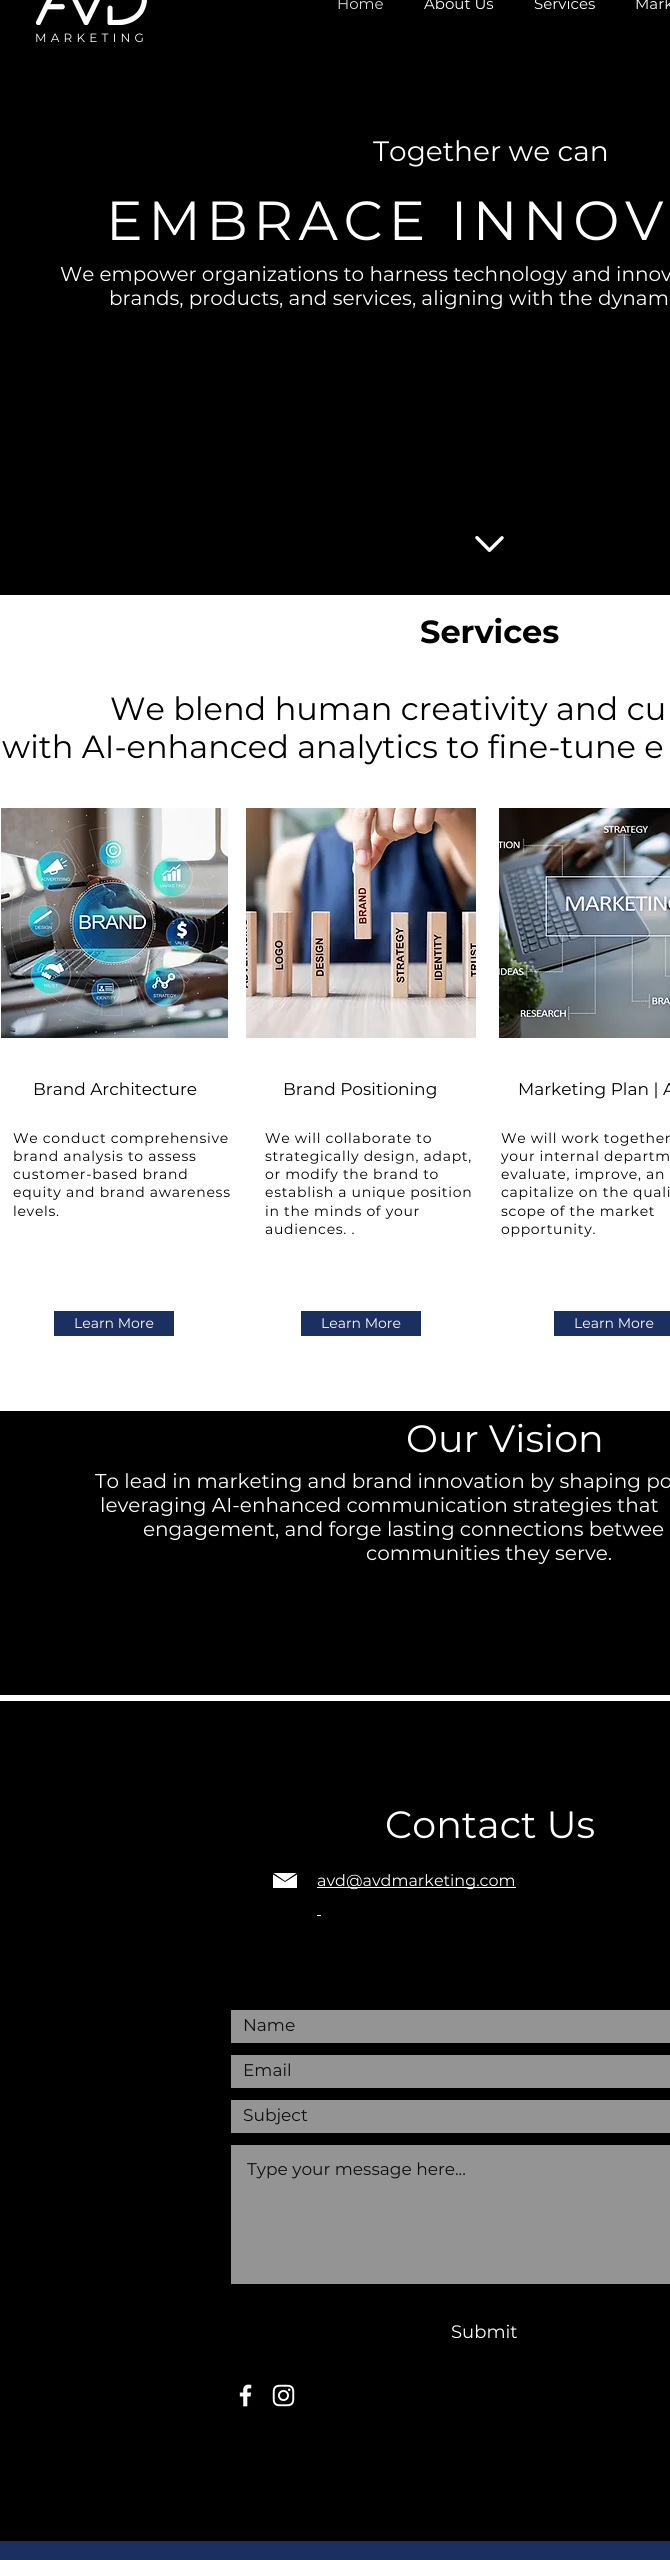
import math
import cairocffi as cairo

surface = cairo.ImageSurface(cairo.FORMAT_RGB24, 670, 2560)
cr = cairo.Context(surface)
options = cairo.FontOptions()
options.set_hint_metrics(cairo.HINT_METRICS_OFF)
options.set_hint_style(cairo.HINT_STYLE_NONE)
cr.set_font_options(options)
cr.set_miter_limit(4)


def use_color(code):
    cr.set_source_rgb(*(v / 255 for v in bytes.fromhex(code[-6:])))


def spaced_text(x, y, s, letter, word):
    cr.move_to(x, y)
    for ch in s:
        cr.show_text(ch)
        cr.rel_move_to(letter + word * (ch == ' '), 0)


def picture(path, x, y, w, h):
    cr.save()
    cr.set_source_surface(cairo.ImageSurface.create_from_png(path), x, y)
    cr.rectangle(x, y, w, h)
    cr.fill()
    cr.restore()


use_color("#ffffff")
cr.paint()
use_color("#000000")
cr.rectangle(0, 0, 670, 595)
cr.fill()
picture("img1.png", 36, 0, 111, 25)
cr.select_font_face("Montserrat")
cr.set_font_size(15)
use_color("#dbdbdb")
cr.move_to(337, 9)
cr.show_text("Home")
use_color("#ffffff")
cr.move_to(424, 9)
cr.show_text("About Us")
cr.move_to(534, 9)
cr.show_text("Services")
cr.move_to(635, 9)
cr.show_text("Mark")
cr.set_font_size(12)
spaced_text(35, 42, "MARKETING", 4.25, 0)
cr.set_font_size(28)
cr.move_to(373, 161)
cr.show_text("Together we can")
cr.set_font_size(55)
spaced_text(106, 240, "EMBRACE INNOV", 5.5, 0)
cr.set_font_size(20)
cr.move_to(60, 281)
cr.show_text("We empower organizations to harness technology and innov")
cr.move_to(109, 305)
cr.show_text("brands, products, and services, aligning with the dynam")
picture("img2.png", 475, 536, 29, 16)
cr.select_font_face("Montserrat", cairo.FONT_SLANT_NORMAL, cairo.FONT_WEIGHT_BOLD)
cr.set_font_size(32)
use_color("#000000")
cr.move_to(420, 643)
cr.show_text("Services")
cr.select_font_face("Montserrat")
cr.move_to(110, 720)
cr.show_text("We blend human creativity and cu")
cr.move_to(2, 758)
cr.show_text("with AI-enhanced analytics to fine-tune e")
picture("img3.png", 1, 808, 227, 230)
picture("img4.png", 246, 808, 230, 230)
picture("img5.png", 499, 808, 171, 230)
cr.set_font_size(17)
cr.move_to(33, 1095)
cr.show_text("Brand Architecture")
cr.move_to(283, 1095)
cr.show_text("Brand Positioning")
cr.move_to(518, 1095)
cr.show_text("Marketing Plan | A")
cr.set_font_size(14)
spaced_text(13, 1143, "We conduct comprehensive", 0.7, 0)
spaced_text(13, 1161, "brand analysis to assess", 0.7, 0)
spaced_text(13, 1179, "customer-based brand", 0.7, 0)
spaced_text(13, 1197, "equity and brand awareness", 0.7, 0)
spaced_text(13, 1216, "levels.", 0.7, 0)
spaced_text(265, 1143, "We will collaborate to", 0.7, 0)
spaced_text(265, 1161, "strategically design, adapt,", 0.7, 0)
spaced_text(265, 1179, "or modify the brand to", 0.7, 0)
spaced_text(265, 1197, "establish a unique position", 0.7, 0)
spaced_text(265, 1216, "in the minds of your", 0.7, 0)
spaced_text(265, 1234, "audiences. .", 0.7, 0)
spaced_text(501, 1143, "We will work together", 0.7, 0)
spaced_text(501, 1161, "your internal departm", 0.7, 0)
spaced_text(501, 1179, "evaluate, improve, an", 0.7, 0)
spaced_text(501, 1197, "capitalize on the quali", 0.7, 0)
spaced_text(501, 1216, "scope of the market", 0.7, 0)
spaced_text(501, 1234, "opportunity.", 0.7, 0)
use_color("#1c2f61")
cr.rectangle(54, 1311, 120, 25)
cr.fill()
use_color("#ffffff")
cr.move_to(74, 1328)
cr.show_text("Learn More")
use_color("#1c2f61")
cr.rectangle(301, 1311, 120, 25)
cr.fill()
use_color("#ffffff")
cr.move_to(321, 1328)
cr.show_text("Learn More")
use_color("#1c2f61")
cr.rectangle(554, 1311, 116, 25)
cr.fill()
use_color("#ffffff")
cr.move_to(574, 1328)
cr.show_text("Learn More")
use_color("#000000")
cr.rectangle(0, 1411, 670, 284)
cr.fill()
cr.set_font_size(38)
use_color("#ffffff")
cr.move_to(406, 1452)
cr.show_text("Our Vision")
cr.set_font_size(20)
cr.move_to(95, 1488)
cr.show_text("To lead in marketing and brand innovation by shaping po")
cr.move_to(100, 1512)
cr.show_text("leveraging AI-enhanced communication strategies that")
cr.move_to(143, 1536)
cr.show_text("engagement, and forge lasting connections betwee")
cr.move_to(366, 1560)
cr.show_text("communities they serve.")
use_color("#000000")
cr.rectangle(0, 1701, 670, 840)
cr.fill()
cr.set_font_size(38)
use_color("#ffffff")
cr.move_to(385, 1838)
cr.show_text("Contact Us")
cr.new_path()
cr.move_to(285, 1881)
cr.line_to(273.5, 1873)
cr.line_to(296.5, 1873)
cr.close_path()
cr.move_to(297, 1874.5)
cr.line_to(285, 1882)
cr.line_to(273, 1874.5)
cr.line_to(273, 1888)
cr.line_to(297, 1888)
cr.close_path()
cr.fill()
cr.rectangle(317, 1887, 199, 1)
cr.fill()
cr.set_font_size(16)
cr.move_to(317, 1886)
cr.show_text("avd@avdmarketing.com")
cr.rectangle(317, 1915, 4, 1)
cr.fill()
use_color("#949494")
cr.rectangle(231, 2010, 439, 33)
cr.fill()
cr.set_font_size(17)
use_color("#0f0f0f")
cr.move_to(243, 2031)
cr.show_text("Name")
use_color("#949494")
cr.rectangle(231, 2055, 439, 33)
cr.fill()
use_color("#0f0f0f")
cr.move_to(243, 2076)
cr.show_text("Email")
use_color("#949494")
cr.rectangle(231, 2100, 439, 33)
cr.fill()
use_color("#0f0f0f")
cr.move_to(243, 2121)
cr.show_text("Subject")
use_color("#949494")
cr.rectangle(231, 2145, 439, 139)
cr.fill()
use_color("#0f0f0f")
cr.move_to(247, 2175)
cr.show_text("Type your message here...")
cr.set_font_size(18)
use_color("#ffffff")
cr.move_to(451, 2338)
cr.show_text("Submit")
picture("img6.png", 239, 2384, 13, 23)
picture("img7.png", 272, 2384, 23, 23)
use_color("#1c2f61")
cr.rectangle(0, 2541, 670, 19)
cr.fill()
surface.write_to_png("result.png")
